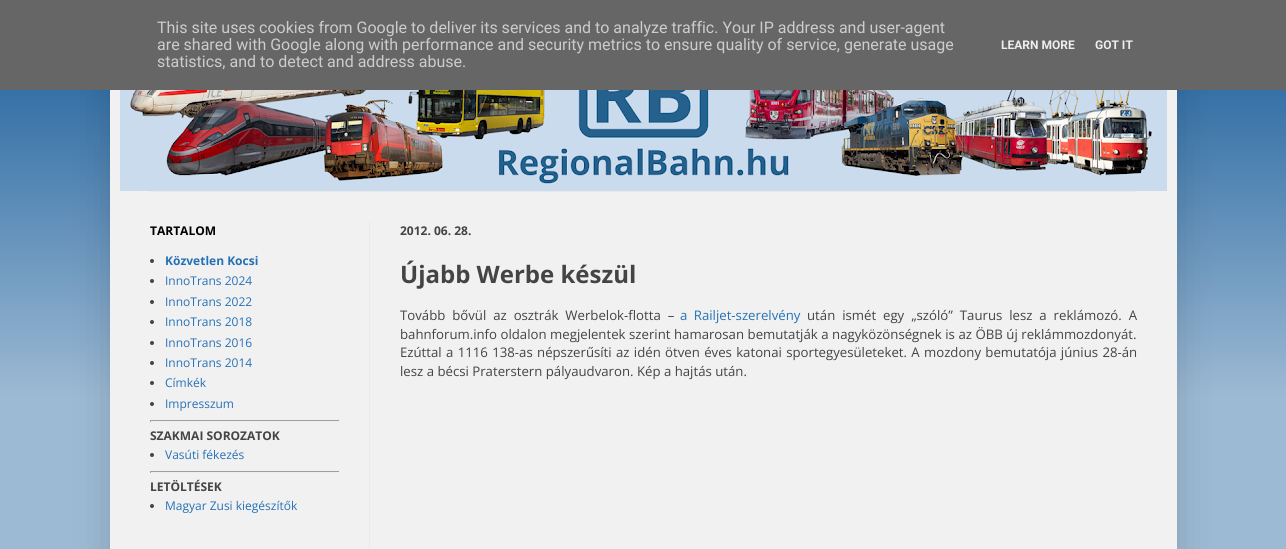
import math
import cairocffi as cairo

surface = cairo.ImageSurface(cairo.FORMAT_RGB24, 1286, 549)
cr = cairo.Context(surface)
options = cairo.FontOptions()
options.set_hint_metrics(cairo.HINT_METRICS_OFF)
options.set_hint_style(cairo.HINT_STYLE_NONE)
cr.set_font_options(options)
cr.set_miter_limit(4)


def use_color(code):
    cr.set_source_rgb(*(v / 255 for v in bytes.fromhex(code[-6:])))


def spaced_text(x, y, s, letter, word):
    cr.move_to(x, y)
    for ch in s:
        cr.show_text(ch)
        cr.rel_move_to(letter + word * (ch == ' '), 0)


def round_rect(x, y, w, h, r):
    cr.new_sub_path()
    for i, (u, v) in enumerate([(x + w - r, y + h - r), (x + r, y + h - r), (x + r, y + r), (x + w - r, y + r)]):
        cr.arc(u, v, r, i * math.pi / 2, (i + 1) * math.pi / 2)
    cr.close_path()


def shadow(x, y, w, h, r, blur, alpha):
    cr.push_group_with_content(cairo.CONTENT_ALPHA)
    cr.set_operator(cairo.OPERATOR_SOURCE)
    for i in range(15, -16, -2):
        e = blur * i / 6
        if min(w, h) + 2 * e > 0:
            cr.set_source_rgba(0, 0, 0, alpha * math.erfc((i - 1) / 8.5) / 2)
            round_rect(x - e, y - e, w + 2 * e, h + 2 * e, max(0, min(r + e + blur * .6, min(w, h) / 2 + e)))
            cr.fill()
    cr.mask(cr.pop_group())


def picture(path, x, y, w, h):
    cr.save()
    cr.set_source_surface(cairo.ImageSurface.create_from_png(path), x, y)
    cr.rectangle(x, y, w, h)
    cr.fill()
    cr.restore()


use_color("#9dbad4")
cr.paint()
use_color("#0b5394")
cr.rectangle(0, 90, 1286, 310)
cr.fill()
picture("img1.png", 0, 90, 1286, 310)
use_color("#000000")
shadow(110, 30, 1067, 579, 0, 20, 0.15)
use_color("#666666")
cr.rectangle(0, 0, 1286, 90)
cr.fill()
cr.select_font_face("Roboto")
cr.set_font_size(16)
use_color("#cccccc")
cr.move_to(157, 33)
cr.show_text("This site uses cookies from Google to deliver its services and to analyze traffic. Your IP address and user-agent")
cr.move_to(157, 50)
cr.show_text("are shared with Google along with performance and security metrics to ensure quality of service, generate usage")
cr.move_to(157, 67)
cr.show_text("statistics, and to detect and address abuse.")
cr.select_font_face("Roboto", cairo.FONT_SLANT_NORMAL, cairo.FONT_WEIGHT_BOLD)
cr.set_font_size(12)
use_color("#eeeeee")
cr.move_to(1001, 49)
cr.show_text("LEARN MORE")
cr.move_to(1095, 49)
cr.show_text("GOT IT")
use_color("#f1f1f1")
cr.rectangle(110, 90, 1067, 459)
cr.fill()
picture("img2.png", 120, 90, 1047, 101)
use_color("#e9e9e9")
cr.rectangle(150, 191, 987, 1)
cr.fill()
cr.rectangle(369, 222, 1, 327)
cr.fill()
cr.select_font_face("Open Sans", cairo.FONT_SLANT_NORMAL, cairo.FONT_WEIGHT_BOLD)
use_color("#000000")
cr.move_to(150, 235)
cr.show_text("TARTALOM")
use_color("#444444")
cr.new_path()
cr.arc(152, 261, 2, 0, 2 * math.pi)
cr.fill()
use_color("#2671b6")
cr.move_to(165, 265)
cr.show_text("Közvetlen Kocsi")
use_color("#444444")
cr.new_path()
cr.arc(152, 281, 2, 0, 2 * math.pi)
cr.fill()
cr.select_font_face("Open Sans")
use_color("#2671b6")
cr.move_to(165, 285)
cr.show_text("InnoTrans 2024")
use_color("#444444")
cr.new_path()
cr.arc(152, 302, 2, 0, 2 * math.pi)
cr.fill()
use_color("#2671b6")
cr.move_to(165, 306)
cr.show_text("InnoTrans 2022")
use_color("#444444")
cr.new_path()
cr.arc(152, 322, 2, 0, 2 * math.pi)
cr.fill()
use_color("#2671b6")
cr.move_to(165, 326)
cr.show_text("InnoTrans 2018")
use_color("#444444")
cr.new_path()
cr.arc(152, 343, 2, 0, 2 * math.pi)
cr.fill()
use_color("#2671b6")
cr.move_to(165, 347)
cr.show_text("InnoTrans 2016")
use_color("#444444")
cr.new_path()
cr.arc(152, 363, 2, 0, 2 * math.pi)
cr.fill()
use_color("#2671b6")
cr.move_to(165, 367)
cr.show_text("InnoTrans 2014")
use_color("#444444")
cr.new_path()
cr.arc(152, 383, 2, 0, 2 * math.pi)
cr.fill()
use_color("#2671b6")
cr.move_to(165, 387)
cr.show_text("Címkék")
use_color("#444444")
cr.new_path()
cr.arc(152, 404, 2, 0, 2 * math.pi)
cr.fill()
use_color("#2671b6")
cr.move_to(165, 408)
cr.show_text("Impresszum")
use_color("#9f9f9f")
cr.rectangle(150, 420, 190, 1)
cr.fill()
use_color("#eeeeee")
cr.rectangle(339, 420, 1, 2)
cr.fill()
cr.rectangle(150, 421, 190, 1)
cr.fill()
use_color("#9f9f9f")
cr.rectangle(150, 420, 1, 2)
cr.fill()
cr.select_font_face("Open Sans", cairo.FONT_SLANT_NORMAL, cairo.FONT_WEIGHT_BOLD)
use_color("#444444")
cr.move_to(150, 440)
cr.show_text("SZAKMAI SOROZATOK")
cr.new_path()
cr.arc(152, 455, 2, 0, 2 * math.pi)
cr.fill()
cr.select_font_face("Open Sans")
use_color("#2671b6")
cr.move_to(165, 459)
cr.show_text("Vasúti fékezés")
use_color("#9f9f9f")
cr.rectangle(150, 471, 190, 1)
cr.fill()
use_color("#eeeeee")
cr.rectangle(339, 471, 1, 2)
cr.fill()
cr.rectangle(150, 472, 190, 1)
cr.fill()
use_color("#9f9f9f")
cr.rectangle(150, 471, 1, 2)
cr.fill()
cr.select_font_face("Open Sans", cairo.FONT_SLANT_NORMAL, cairo.FONT_WEIGHT_BOLD)
use_color("#444444")
cr.move_to(150, 491)
cr.show_text("LETÖLTÉSEK")
cr.new_path()
cr.arc(152, 506, 2, 0, 2 * math.pi)
cr.fill()
cr.select_font_face("Open Sans")
use_color("#2671b6")
cr.move_to(165, 510)
cr.show_text("Magyar Zusi kiegészítők")
cr.select_font_face("Open Sans", cairo.FONT_SLANT_NORMAL, cairo.FONT_WEIGHT_BOLD)
use_color("#444444")
cr.move_to(400, 235)
cr.show_text("2012. 06. 28.")
cr.set_font_size(24)
cr.move_to(400, 283)
cr.show_text("Újabb Werbe készül")
cr.select_font_face("Open Sans")
cr.set_font_size(13.2)
spaced_text(400, 320, "Tovább bővül az osztrák Werbelok-flotta –", 0, 3.5)
use_color("#2671b6")
spaced_text(680, 320, "a Railjet-szerelvény", 0, 3)
use_color("#444444")
spaced_text(807, 320, "után ismét egy „szóló” Taurus lesz a reklámozó. A", 0, 3.5)
spaced_text(400, 339, "bahnforum.info oldalon megjelentek szerint hamarosan bemutatják a nagyközönségnek is az ÖBB új reklámmozdonyát.", 0, 0.1)
spaced_text(400, 357, "Ezúttal a 1116 138-as népszerűsíti az idén ötven éves katonai sportegyesületeket. A mozdony bemutatója június 28-án", 0, 0.9)
cr.move_to(400, 376)
cr.show_text("lesz a bécsi Praterstern pályaudvaron. Kép a hajtás után.")
surface.write_to_png("result.png")
